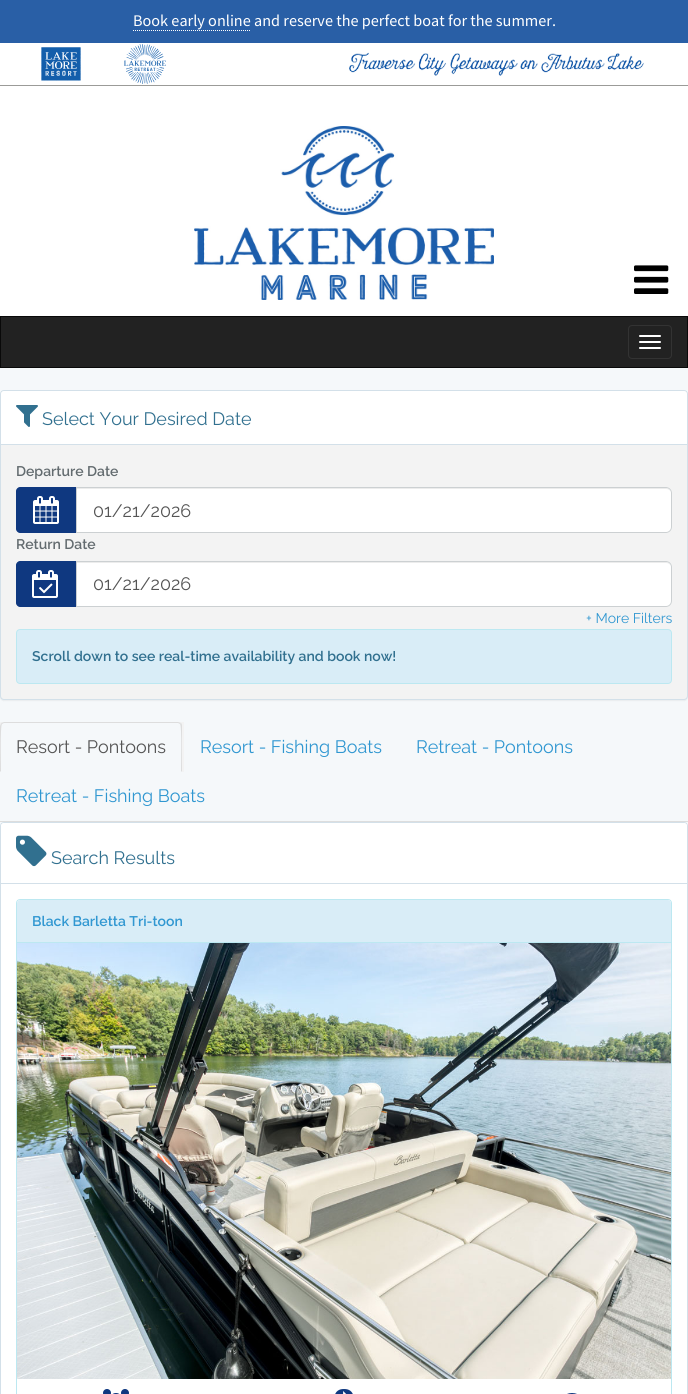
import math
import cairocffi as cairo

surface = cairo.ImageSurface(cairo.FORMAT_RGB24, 688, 1394)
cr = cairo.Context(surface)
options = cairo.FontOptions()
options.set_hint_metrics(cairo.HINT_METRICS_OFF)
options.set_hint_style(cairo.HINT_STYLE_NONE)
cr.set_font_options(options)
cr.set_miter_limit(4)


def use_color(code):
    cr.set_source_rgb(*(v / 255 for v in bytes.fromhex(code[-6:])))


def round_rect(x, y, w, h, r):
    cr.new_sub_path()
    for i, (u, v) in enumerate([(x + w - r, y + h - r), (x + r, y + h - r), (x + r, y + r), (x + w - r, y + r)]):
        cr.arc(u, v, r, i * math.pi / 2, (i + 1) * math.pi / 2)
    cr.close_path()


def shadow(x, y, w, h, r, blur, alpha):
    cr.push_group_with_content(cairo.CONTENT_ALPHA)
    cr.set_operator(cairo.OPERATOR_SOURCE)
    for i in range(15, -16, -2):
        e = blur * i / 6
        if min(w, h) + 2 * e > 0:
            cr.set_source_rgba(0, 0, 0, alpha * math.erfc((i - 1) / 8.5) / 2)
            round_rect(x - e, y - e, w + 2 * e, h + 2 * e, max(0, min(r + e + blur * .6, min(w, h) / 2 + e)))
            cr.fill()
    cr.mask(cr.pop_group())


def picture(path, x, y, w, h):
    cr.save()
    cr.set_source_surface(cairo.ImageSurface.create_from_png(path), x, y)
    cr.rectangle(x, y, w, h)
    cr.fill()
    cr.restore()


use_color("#295fa6")
cr.paint()
cr.select_font_face("Source Sans Pro")
cr.set_font_size(16.2)
use_color("#ffffff")
cr.move_to(133, 26)
cr.show_text("Book early online and reserve the perfect boat for the summer.")
cr.new_path()
cr.move_to(133, 30.5)
cr.line_to(250, 30.5)
cr.set_line_width(1)
cr.set_dash([1, 1])
cr.stroke()
cr.rectangle(0, 43, 688, 42)
cr.fill()
use_color("#9b9b98")
cr.rectangle(0, 85, 688, 1)
cr.fill()
picture("img1.png", 41, 47, 40, 34)
picture("img2.png", 124, 44, 42, 40)
picture("img3.png", 349, 52, 295, 24)
use_color("#ffffff")
cr.rectangle(0, 86, 688, 230)
cr.fill()
picture("img4.png", 194, 126, 300, 174)
picture("img5.png", 634, 265, 35, 29)
use_color("#f5f8fa")
cr.rectangle(0, 368, 688, 458)
cr.fill()
use_color("#222222")
cr.rectangle(0.5, 316.5, 687, 51)
cr.fill_preserve()
use_color("#090909")
cr.set_dash([])
cr.stroke()
round_rect(628.5, 325.5, 43, 33, 3.5)
use_color("#333333")
cr.stroke()
use_color("#ffffff")
round_rect(639, 335, 22, 2, 1)
cr.fill()
round_rect(639, 341, 22, 2, 1)
cr.fill()
round_rect(639, 347, 22, 2, 1)
cr.fill()
use_color("#000000")
shadow(0, 391, 688, 310, 4, 0.5, 0.05)
use_color("#f3f3f3")
round_rect(0.5, 390.5, 687, 309, 3.5)
cr.fill_preserve()
use_color("#d3e0e9")
cr.stroke()
use_color("#ffffff")
cr.new_path()
cr.move_to(4, 391)
cr.line_to(684, 391)
cr.curve_to(685.5, 391, 687, 392.5, 687, 394)
cr.line_to(687, 445)
cr.line_to(1, 445)
cr.line_to(1, 394)
cr.curve_to(1, 392.5, 2.5, 391, 4, 391)
cr.close_path()
cr.fill()
use_color("#d3e0e9")
cr.rectangle(1, 444, 686, 1)
cr.fill()
picture("img6.png", 16, 405, 22, 22)
cr.select_font_face("Raleway")
cr.set_font_size(18)
use_color("#31708f")
cr.move_to(42, 425)
cr.show_text("Select Your Desired Date")
cr.select_font_face("Raleway SemiBold")
cr.set_font_size(14)
use_color("#636b6f")
cr.move_to(16, 476)
cr.show_text("Departure Date")
use_color("#0f3880")
cr.new_path()
cr.move_to(20, 487)
cr.line_to(76, 487)
cr.line_to(76, 533)
cr.line_to(20, 533)
cr.curve_to(18, 533, 16, 531, 16, 529)
cr.line_to(16, 491)
cr.curve_to(16, 489, 18, 487, 20, 487)
cr.close_path()
cr.fill()
picture("img7.png", 33, 496, 26, 28)
use_color("#ffffff")
cr.new_path()
cr.move_to(76, 487)
cr.line_to(666, 487)
cr.curve_to(669.5, 487, 672, 489.5, 672, 493)
cr.line_to(672, 527)
cr.curve_to(672, 530.5, 669.5, 533, 666, 533)
cr.line_to(76, 533)
cr.close_path()
cr.fill()
use_color("#ececec")
cr.new_path()
cr.move_to(77, 489)
cr.line_to(666, 489)
cr.curve_to(669, 489, 671, 491, 671, 494)
cr.curve_to(671, 491, 669, 488, 666, 488)
cr.line_to(77, 488)
cr.close_path()
cr.fill()
cr.new_path()
cr.move_to(76.5, 487.5)
cr.line_to(666, 487.5)
cr.curve_to(669, 487.5, 671.5, 490, 671.5, 493)
cr.line_to(671.5, 527)
cr.curve_to(671.5, 530, 669, 532.5, 666, 532.5)
cr.line_to(76.5, 532.5)
cr.close_path()
use_color("#ccd0d2")
cr.stroke()
cr.select_font_face("Raleway")
cr.set_font_size(18)
use_color("#555555")
cr.move_to(93, 517)
cr.show_text("01/21/2026")
cr.select_font_face("Raleway SemiBold")
cr.set_font_size(14)
use_color("#636b6f")
cr.move_to(16, 549)
cr.show_text("Return Date")
use_color("#0f3880")
cr.new_path()
cr.move_to(20, 561)
cr.line_to(76, 561)
cr.line_to(76, 607)
cr.line_to(20, 607)
cr.curve_to(18, 607, 16, 605, 16, 603)
cr.line_to(16, 565)
cr.curve_to(16, 563, 18, 561, 20, 561)
cr.close_path()
cr.fill()
picture("img8.png", 32, 570, 26, 28)
use_color("#ffffff")
cr.new_path()
cr.move_to(76, 561)
cr.line_to(666, 561)
cr.curve_to(669.5, 561, 672, 563.5, 672, 567)
cr.line_to(672, 601)
cr.curve_to(672, 604.5, 669.5, 607, 666, 607)
cr.line_to(76, 607)
cr.close_path()
cr.fill()
use_color("#ececec")
cr.new_path()
cr.move_to(77, 563)
cr.line_to(666, 563)
cr.curve_to(669, 563, 671, 565, 671, 568)
cr.curve_to(671, 565, 669, 562, 666, 562)
cr.line_to(77, 562)
cr.close_path()
cr.fill()
cr.new_path()
cr.move_to(76.5, 561.5)
cr.line_to(666, 561.5)
cr.curve_to(669, 561.5, 671.5, 564, 671.5, 567)
cr.line_to(671.5, 601)
cr.curve_to(671.5, 604, 669, 606.5, 666, 606.5)
cr.line_to(76.5, 606.5)
cr.close_path()
use_color("#ccd0d2")
cr.stroke()
cr.select_font_face("Raleway")
cr.set_font_size(18)
use_color("#555555")
cr.move_to(93, 590)
cr.show_text("01/21/2026")
cr.set_font_size(14)
use_color("#3097d1")
cr.move_to(586, 623)
cr.show_text("+ More Filters")
use_color("#d9edf7")
round_rect(16.5, 629.5, 655, 54, 3.5)
cr.fill_preserve()
use_color("#bce8f1")
cr.stroke()
cr.select_font_face("Raleway SemiBold")
use_color("#31708f")
cr.move_to(32, 661)
cr.show_text("Scroll down to see real-time availability and book now!")
use_color("#dddddd")
cr.rectangle(0, 821, 688, 1)
cr.fill()
use_color("#f3f3f3")
cr.rectangle(0, 722, 184, 50)
cr.fill()
use_color("#f5f8fa")
cr.new_path()
cr.move_to(4, 722)
cr.line_to(178, 722)
cr.curve_to(180, 722, 182, 724, 182, 726)
cr.line_to(182, 772)
cr.line_to(0, 772)
cr.line_to(0, 726)
cr.curve_to(0, 724, 2, 722, 4, 722)
cr.close_path()
cr.fill()
use_color("#dddddd")
cr.new_path()
cr.move_to(4, 722)
cr.line_to(1, 723)
cr.line_to(2, 724)
cr.line_to(4, 723)
cr.line_to(178, 723)
cr.line_to(180, 724)
cr.line_to(181, 723)
cr.line_to(178, 722)
cr.close_path()
cr.fill()
cr.new_path()
cr.move_to(182, 772)
cr.line_to(182, 726)
cr.curve_to(182, 725, 182, 724, 181, 723)
cr.line_to(180, 724)
cr.curve_to(182, 726, 181, 765, 181, 771)
cr.close_path()
cr.fill()
cr.new_path()
cr.move_to(0, 772)
cr.line_to(1, 771)
cr.curve_to(1, 765, 0, 726, 2, 724)
cr.line_to(1, 723)
cr.line_to(0, 726)
cr.close_path()
cr.fill()
cr.select_font_face("Raleway")
cr.set_font_size(18)
use_color("#555555")
cr.move_to(16, 753)
cr.show_text("Resort - Pontoons")
use_color("#3097d1")
cr.move_to(200, 753)
cr.show_text("Resort - Fishing Boats")
cr.move_to(416, 753)
cr.show_text("Retreat - Pontoons")
cr.move_to(16, 802)
cr.show_text("Retreat - Fishing Boats")
use_color("#ffffff")
round_rect(0.5, 822.5, 687, 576, 3.5)
cr.fill_preserve()
use_color("#d3e0e9")
cr.stroke()
use_color("#ffffff")
cr.new_path()
cr.move_to(4, 823)
cr.line_to(684, 823)
cr.curve_to(685.5, 823, 687, 824.5, 687, 826)
cr.line_to(687, 884)
cr.line_to(1, 884)
cr.line_to(1, 826)
cr.curve_to(1, 824.5, 2.5, 823, 4, 823)
cr.close_path()
cr.fill()
use_color("#d3e0e9")
cr.rectangle(1, 883, 686, 1)
cr.fill()
picture("img9.png", 16, 835, 31, 32)
use_color("#31708f")
cr.move_to(51, 864)
cr.show_text("Search Results")
round_rect(16.5, 899.5, 655, 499, 3.5)
use_color("#bce8f1")
cr.stroke()
use_color("#d9edf7")
cr.new_path()
cr.move_to(20, 900)
cr.line_to(668, 900)
cr.curve_to(669.5, 900, 671, 901.5, 671, 903)
cr.line_to(671, 943)
cr.line_to(17, 943)
cr.line_to(17, 903)
cr.curve_to(17, 901.5, 18.5, 900, 20, 900)
cr.close_path()
cr.fill()
use_color("#bce8f1")
cr.rectangle(17, 942, 654, 1)
cr.fill()
cr.select_font_face("Raleway SemiBold")
cr.set_font_size(14)
use_color("#3097d1")
cr.move_to(32, 926)
cr.show_text("Black Barletta Tri-toon")
picture("img10.png", 17, 943, 654, 436)
picture("img11.png", 103, 1389, 26, 5)
picture("img12.png", 335, 1389, 18, 5)
picture("img13.png", 567, 1393, 10, 1)
surface.write_to_png("result.png")
